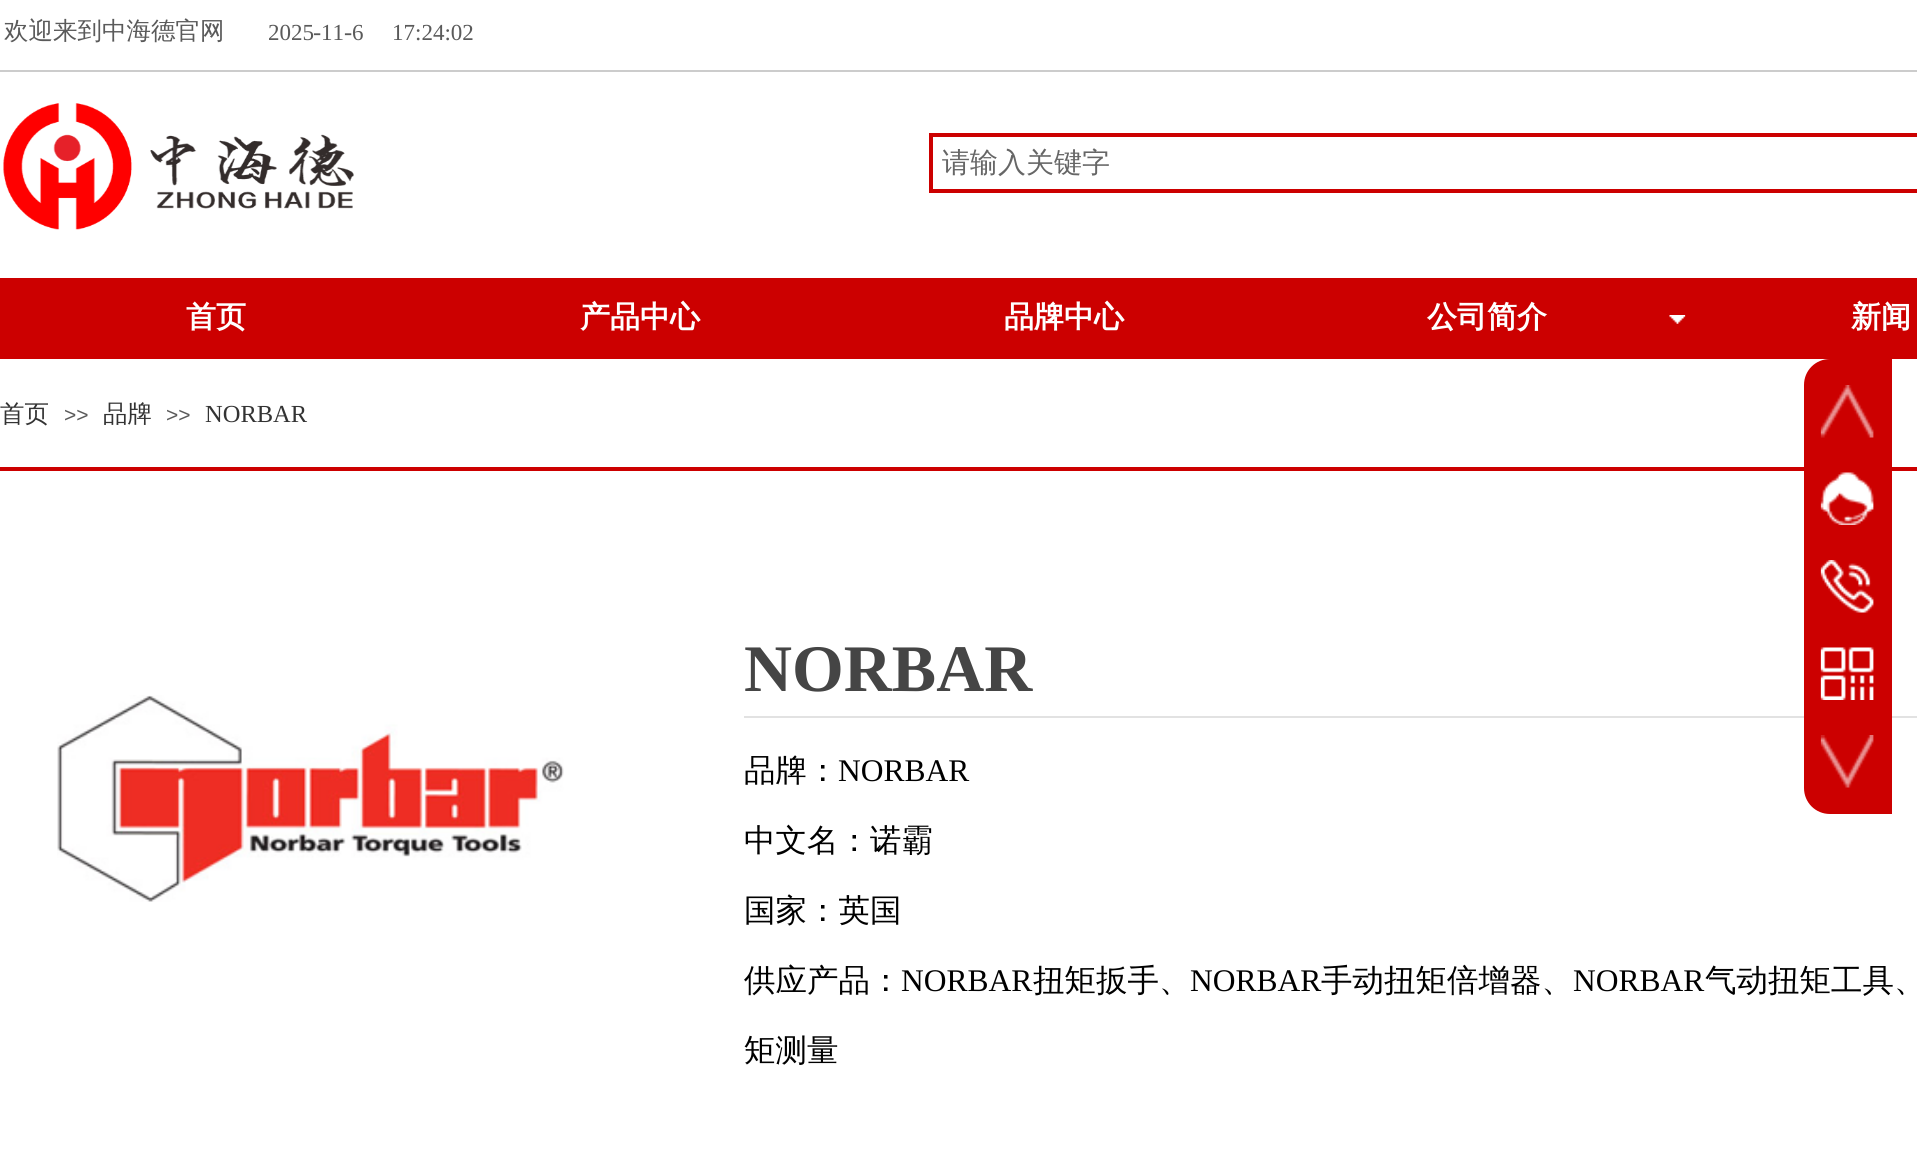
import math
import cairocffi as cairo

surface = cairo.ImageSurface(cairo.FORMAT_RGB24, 1917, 1171)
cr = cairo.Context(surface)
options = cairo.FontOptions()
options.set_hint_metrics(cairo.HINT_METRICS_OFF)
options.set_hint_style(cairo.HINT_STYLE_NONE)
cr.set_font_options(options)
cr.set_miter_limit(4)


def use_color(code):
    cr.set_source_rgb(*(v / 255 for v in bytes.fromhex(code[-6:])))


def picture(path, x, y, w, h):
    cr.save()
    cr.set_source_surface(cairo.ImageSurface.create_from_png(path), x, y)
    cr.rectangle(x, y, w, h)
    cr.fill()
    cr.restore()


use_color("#ffffff")
cr.paint()
cr.select_font_face("WenQuanYi Zen Hei Medium")
cr.set_font_size(24.5)
use_color("#5a5a5a")
cr.move_to(4, 39)
cr.show_text("欢迎来到中海德官网")
cr.select_font_face("Liberation Serif")
cr.set_font_size(23)
cr.move_to(268, 40)
cr.show_text("2025")
cr.set_font_size(24.5)
cr.move_to(313, 40)
cr.show_text("-")
cr.set_font_size(23)
cr.move_to(321, 40)
cr.show_text("11")
cr.set_font_size(24.5)
cr.move_to(344, 40)
cr.show_text("-")
cr.set_font_size(23)
cr.move_to(352, 40)
cr.show_text("6")
cr.move_to(392, 40)
cr.show_text("17:24:02")
use_color("#cccccc")
cr.rectangle(0, 70, 1917, 2)
cr.fill()
picture("img1.png", 3, 103, 351, 127)
cr.rectangle(931, 135, 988, 56)
use_color("#cc0000")
cr.set_line_width(4)
cr.stroke()
cr.select_font_face("WenQuanYi Zen Hei Medium")
cr.set_font_size(28)
use_color("#666666")
cr.move_to(942, 172)
cr.show_text("请输入关键字")
use_color("#cc0000")
cr.rectangle(0, 278, 1917, 81)
cr.fill()
cr.select_font_face("WenQuanYi Zen Hei", cairo.FONT_SLANT_NORMAL, cairo.FONT_WEIGHT_BOLD)
cr.set_font_size(30)
use_color("#ffffff")
cr.move_to(186, 327)
cr.show_text("首页")
cr.move_to(580, 327)
cr.show_text("产品中心")
cr.move_to(1004, 327)
cr.show_text("品牌中心")
picture("img2.png", 1669, 315, 17, 9)
cr.move_to(1427, 327)
cr.show_text("公司简介")
cr.move_to(1851, 327)
cr.show_text("新闻")
cr.select_font_face("WenQuanYi Zen Hei Medium")
cr.set_font_size(24.5)
use_color("#333333")
cr.move_to(0, 422)
cr.show_text("首页")
cr.select_font_face("Liberation Sans")
cr.set_font_size(21)
use_color("#5a5a5a")
cr.move_to(64, 422)
cr.show_text(">>")
cr.select_font_face("WenQuanYi Zen Hei Medium")
cr.set_font_size(24.5)
use_color("#333333")
cr.move_to(103, 422)
cr.show_text("品牌")
cr.select_font_face("Liberation Sans")
cr.set_font_size(21)
use_color("#5a5a5a")
cr.move_to(166, 422)
cr.show_text(">>")
cr.select_font_face("Liberation Serif")
cr.set_font_size(24.5)
use_color("#333333")
cr.move_to(205, 422)
cr.show_text("NORBAR")
use_color("#cc0000")
cr.rectangle(0, 467, 1917, 4)
cr.fill()
picture("img3.png", 57, 695, 507, 207)
use_color("#e2e2e2")
cr.rectangle(744, 716, 1173, 2)
cr.fill()
cr.select_font_face("Liberation Serif", cairo.FONT_SLANT_NORMAL, cairo.FONT_WEIGHT_BOLD)
cr.set_font_size(66.5)
use_color("#454545")
cr.move_to(744, 691)
cr.show_text("NORBAR")
cr.select_font_face("WenQuanYi Zen Hei Medium")
cr.set_font_size(31.5)
use_color("#000000")
cr.move_to(744, 781)
cr.show_text("品牌：")
cr.select_font_face("Liberation Serif")
cr.move_to(838, 781)
cr.show_text("NORBAR")
cr.select_font_face("WenQuanYi Zen Hei Medium")
cr.move_to(744, 851)
cr.show_text("中文名：诺霸")
cr.move_to(744, 921)
cr.show_text("国家：英国")
cr.move_to(744, 991)
cr.show_text("供应产品：")
cr.select_font_face("Liberation Serif")
cr.move_to(901, 991)
cr.show_text("NORBAR")
cr.select_font_face("WenQuanYi Zen Hei Medium")
cr.move_to(1033, 991)
cr.show_text("扭矩扳手、")
cr.select_font_face("Liberation Serif")
cr.move_to(1190, 991)
cr.show_text("NORBAR")
cr.select_font_face("WenQuanYi Zen Hei Medium")
cr.move_to(1321, 991)
cr.show_text("手动扭矩倍增器、")
cr.select_font_face("Liberation Serif")
cr.move_to(1573, 991)
cr.show_text("NORBAR")
cr.select_font_face("WenQuanYi Zen Hei Medium")
cr.move_to(1705, 991)
cr.show_text("气动扭矩工具、")
cr.move_to(744, 1061)
cr.show_text("矩测量")
use_color("#cc0000")
cr.new_path()
cr.move_to(1830, 359)
cr.line_to(1892, 359)
cr.line_to(1892, 814)
cr.line_to(1830, 814)
cr.curve_to(1815.5, 814, 1804, 802.5, 1804, 788)
cr.line_to(1804, 385)
cr.curve_to(1804, 370.5, 1815.5, 359, 1830, 359)
cr.close_path()
cr.fill()
picture("img4.png", 1820, 385, 54, 53)
picture("img5.png", 1820, 472, 54, 53)
picture("img6.png", 1820, 560, 54, 53)
picture("img7.png", 1820, 647, 54, 53)
picture("img8.png", 1820, 735, 54, 53)
surface.write_to_png("result.png")
